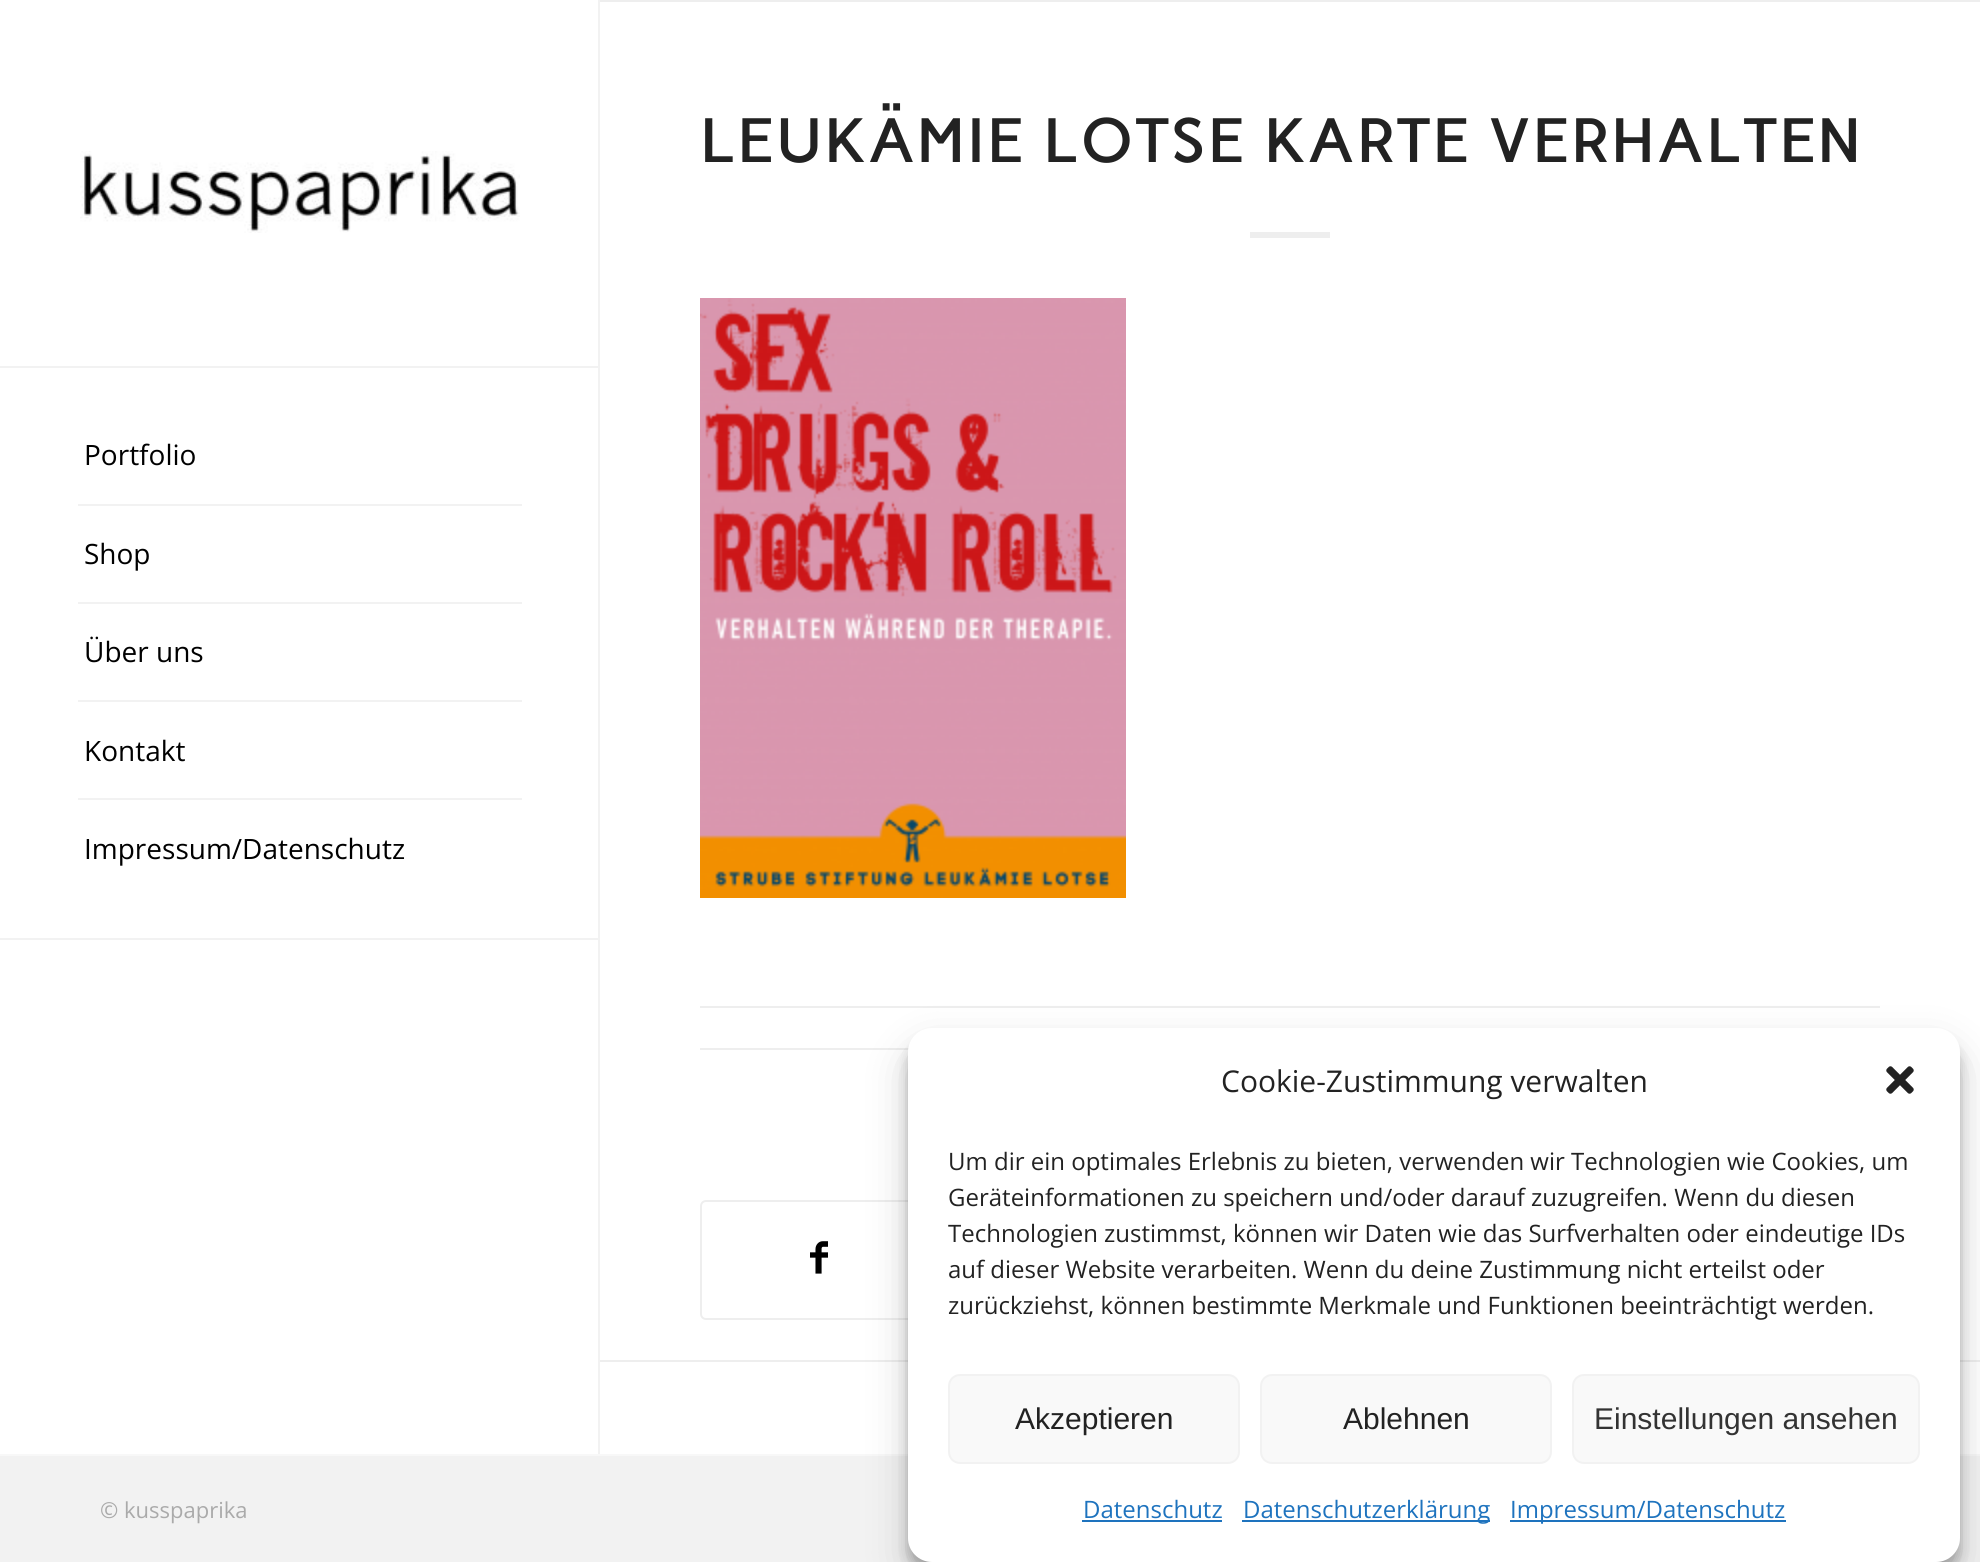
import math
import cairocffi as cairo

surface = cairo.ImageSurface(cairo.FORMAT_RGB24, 1980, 1562)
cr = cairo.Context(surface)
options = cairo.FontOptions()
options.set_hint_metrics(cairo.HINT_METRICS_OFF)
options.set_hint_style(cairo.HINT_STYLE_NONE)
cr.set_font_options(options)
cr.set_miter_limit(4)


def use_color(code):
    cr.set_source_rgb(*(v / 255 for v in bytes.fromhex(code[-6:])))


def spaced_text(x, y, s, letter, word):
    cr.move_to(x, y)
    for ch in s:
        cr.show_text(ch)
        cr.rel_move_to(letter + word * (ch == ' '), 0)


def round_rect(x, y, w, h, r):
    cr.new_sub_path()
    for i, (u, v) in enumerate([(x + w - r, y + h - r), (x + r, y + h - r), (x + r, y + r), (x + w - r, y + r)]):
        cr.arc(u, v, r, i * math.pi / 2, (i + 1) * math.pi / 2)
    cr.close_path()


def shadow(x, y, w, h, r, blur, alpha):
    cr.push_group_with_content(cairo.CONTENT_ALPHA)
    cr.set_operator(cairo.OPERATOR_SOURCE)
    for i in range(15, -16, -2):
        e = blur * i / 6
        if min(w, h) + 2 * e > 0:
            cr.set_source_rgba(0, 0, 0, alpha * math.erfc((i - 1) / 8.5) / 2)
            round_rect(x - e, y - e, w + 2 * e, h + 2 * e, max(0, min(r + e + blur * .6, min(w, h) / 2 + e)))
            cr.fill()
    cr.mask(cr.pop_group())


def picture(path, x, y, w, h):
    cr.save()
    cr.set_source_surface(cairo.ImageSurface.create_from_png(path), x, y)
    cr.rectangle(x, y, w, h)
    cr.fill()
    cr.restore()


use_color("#ffffff")
cr.paint()
use_color("#eeeeee")
cr.rectangle(600, 0, 1380, 2)
cr.fill()
cr.select_font_face("Carme", cairo.FONT_SLANT_NORMAL, cairo.FONT_WEIGHT_BOLD)
cr.set_font_size(60)
use_color("#222222")
spaced_text(700, 162, "LEUKÄMIE LOTSE KARTE VERHALTEN", 4, 0)
use_color("#eeeeee")
cr.rectangle(1250, 232, 80, 6)
cr.fill()
picture("img1.png", 700, 298, 426, 600)
cr.rectangle(700, 1006, 1180, 2)
cr.fill()
cr.rectangle(700, 1048, 209, 2)
cr.fill()
round_rect(701, 1201, 1178, 118, 5)
cr.stroke()
picture("img2.png", 810, 1241, 18, 33)
cr.rectangle(600, 1360, 1380, 2)
cr.fill()
use_color("#f2f2f2")
cr.rectangle(0, 1456, 1980, 106)
cr.fill()
use_color("#f8f8f8")
cr.rectangle(0, 1454, 1980, 2)
cr.fill()
cr.select_font_face("Open Sans")
cr.set_font_size(22)
use_color("#aaaaaa")
cr.move_to(100, 1518)
cr.show_text("© kusspaprika")
use_color("#f2f2f2")
cr.rectangle(598, 0, 2, 1454)
cr.fill()
cr.rectangle(0, 938, 600, 2)
cr.fill()
cr.rectangle(0, 366, 600, 2)
cr.fill()
picture("img3.png", 80, 151, 440, 82)
cr.rectangle(78, 504, 444, 2)
cr.fill()
cr.set_font_size(28)
use_color("#000000")
cr.move_to(84, 465)
cr.show_text("Portfolio")
use_color("#f2f2f2")
cr.rectangle(78, 602, 444, 2)
cr.fill()
use_color("#000000")
cr.move_to(84, 564)
cr.show_text("Shop")
use_color("#f2f2f2")
cr.rectangle(78, 700, 444, 2)
cr.fill()
use_color("#000000")
cr.move_to(84, 662)
cr.show_text("Über uns")
use_color("#f2f2f2")
cr.rectangle(78, 798, 444, 2)
cr.fill()
use_color("#000000")
cr.move_to(84, 761)
cr.show_text("Kontakt")
cr.move_to(84, 859)
cr.show_text("Impressum/Datenschutz")
use_color("#000000")
shadow(908, 1040, 1052, 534, 24, 6, 0.23)
shadow(908, 1048, 1052, 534, 24, 20, 0.19)
use_color("#ffffff")
round_rect(908, 1028, 1052, 534, 24)
cr.fill()
cr.set_font_size(30)
use_color("#222222")
cr.move_to(1221, 1092)
cr.show_text("Cookie-Zustimmung verwalten")
picture("img4.png", 1886, 1066, 28, 28)
cr.set_font_size(24)
cr.move_to(948, 1170)
cr.show_text("Um dir ein optimales Erlebnis zu bieten, verwenden wir Technologien wie Cookies, um")
cr.move_to(948, 1206)
cr.show_text("Geräteinformationen zu speichern und/oder darauf zuzugreifen. Wenn du diesen")
cr.move_to(948, 1242)
cr.show_text("Technologien zustimmst, können wir Daten wie das Surfverhalten oder eindeutige IDs")
cr.move_to(948, 1278)
cr.show_text("auf dieser Website verarbeiten. Wenn du deine Zustimmung nicht erteilst oder")
cr.move_to(948, 1314)
cr.show_text("zurückziehst, können bestimmte Merkmale und Funktionen beeinträchtigt werden.")
use_color("#f9f9f9")
round_rect(949, 1375, 290, 88, 11)
cr.fill_preserve()
use_color("#f2f2f2")
cr.stroke()
cr.select_font_face("Liberation Sans")
cr.set_font_size(30)
use_color("#222222")
cr.move_to(1015, 1429)
cr.show_text("Akzeptieren")
use_color("#f9f9f9")
round_rect(1261, 1375, 290, 88, 11)
cr.fill_preserve()
use_color("#f2f2f2")
cr.stroke()
use_color("#222222")
cr.move_to(1343, 1429)
cr.show_text("Ablehnen")
use_color("#f9f9f9")
round_rect(1573, 1375, 346, 88, 11)
cr.fill_preserve()
use_color("#f2f2f2")
cr.stroke()
use_color("#333333")
cr.move_to(1594, 1429)
cr.show_text("Einstellungen ansehen")
cr.select_font_face("Open Sans")
cr.set_font_size(24)
use_color("#1e73be")
cr.move_to(1083, 1518)
cr.show_text("Datenschutz")
cr.rectangle(1082, 1520, 140, 2)
cr.fill()
cr.rectangle(1242, 1520, 248, 2)
cr.fill()
cr.move_to(1243, 1518)
cr.show_text("Datenschutzerklärung")
cr.rectangle(1510, 1520, 276, 2)
cr.fill()
cr.move_to(1510, 1518)
cr.show_text("Impressum/Datenschutz")
surface.write_to_png("result.png")
